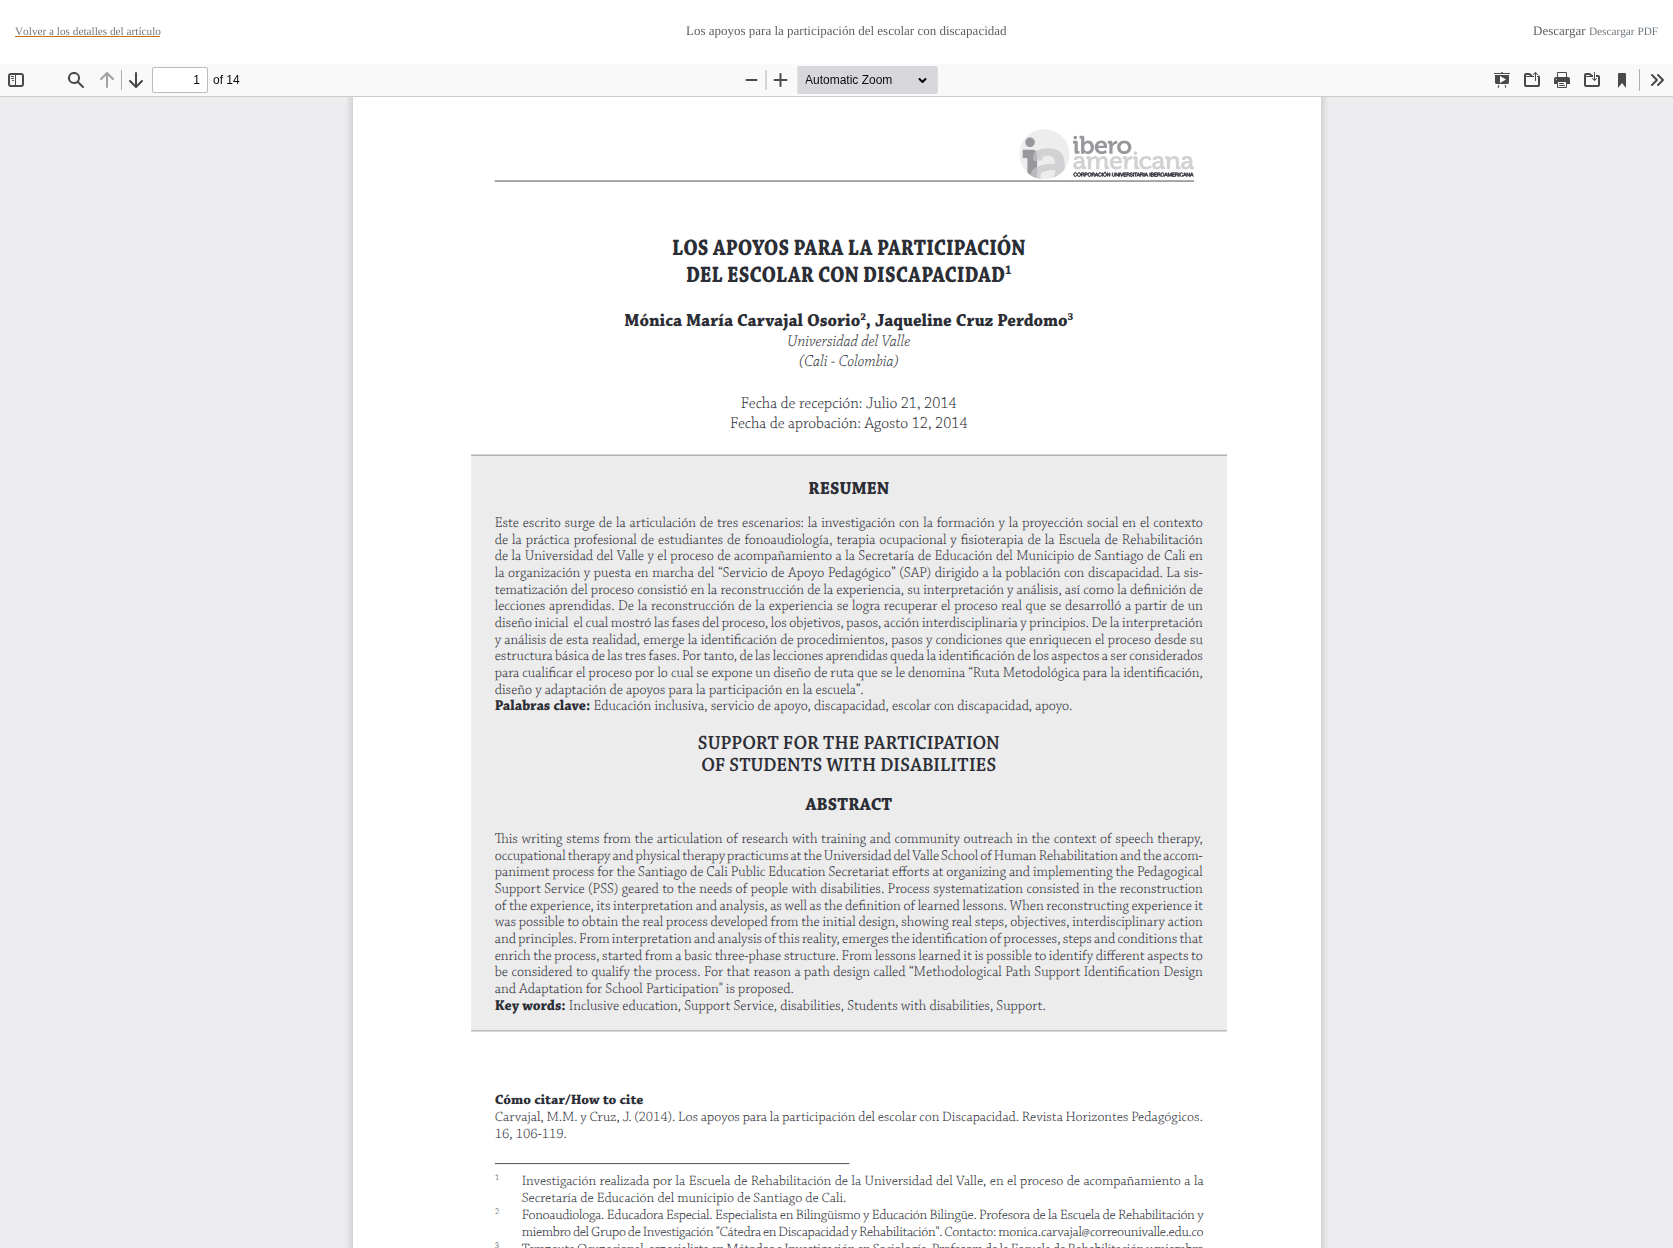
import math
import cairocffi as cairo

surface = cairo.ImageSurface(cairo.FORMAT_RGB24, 1673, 1248)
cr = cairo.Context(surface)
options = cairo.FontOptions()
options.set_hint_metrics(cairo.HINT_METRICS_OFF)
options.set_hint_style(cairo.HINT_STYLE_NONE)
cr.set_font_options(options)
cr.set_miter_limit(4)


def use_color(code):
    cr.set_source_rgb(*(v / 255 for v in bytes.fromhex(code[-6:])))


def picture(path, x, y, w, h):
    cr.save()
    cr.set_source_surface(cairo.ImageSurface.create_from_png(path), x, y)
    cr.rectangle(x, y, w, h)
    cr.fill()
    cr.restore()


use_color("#ffffff")
cr.paint()
cr.select_font_face("Liberation Serif")
cr.set_font_size(11.25)
use_color("#6c757d")
cr.move_to(15, 35)
cr.show_text("Volver a los detalles del artículo")
use_color("#be7314")
cr.rectangle(15, 36, 145, 1)
cr.fill()
cr.set_font_size(13)
use_color("#5d5d5d")
cr.move_to(686, 35)
cr.show_text("Los apoyos para la participación del escolar con discapacidad")
cr.move_to(1533, 35)
cr.show_text("Descargar")
cr.set_font_size(11.25)
use_color("#6c757d")
cr.move_to(1589, 35)
cr.show_text("Descargar PDF")
picture("img1.png", 0, 64, 1673, 1184)
surface.write_to_png("result.png")
